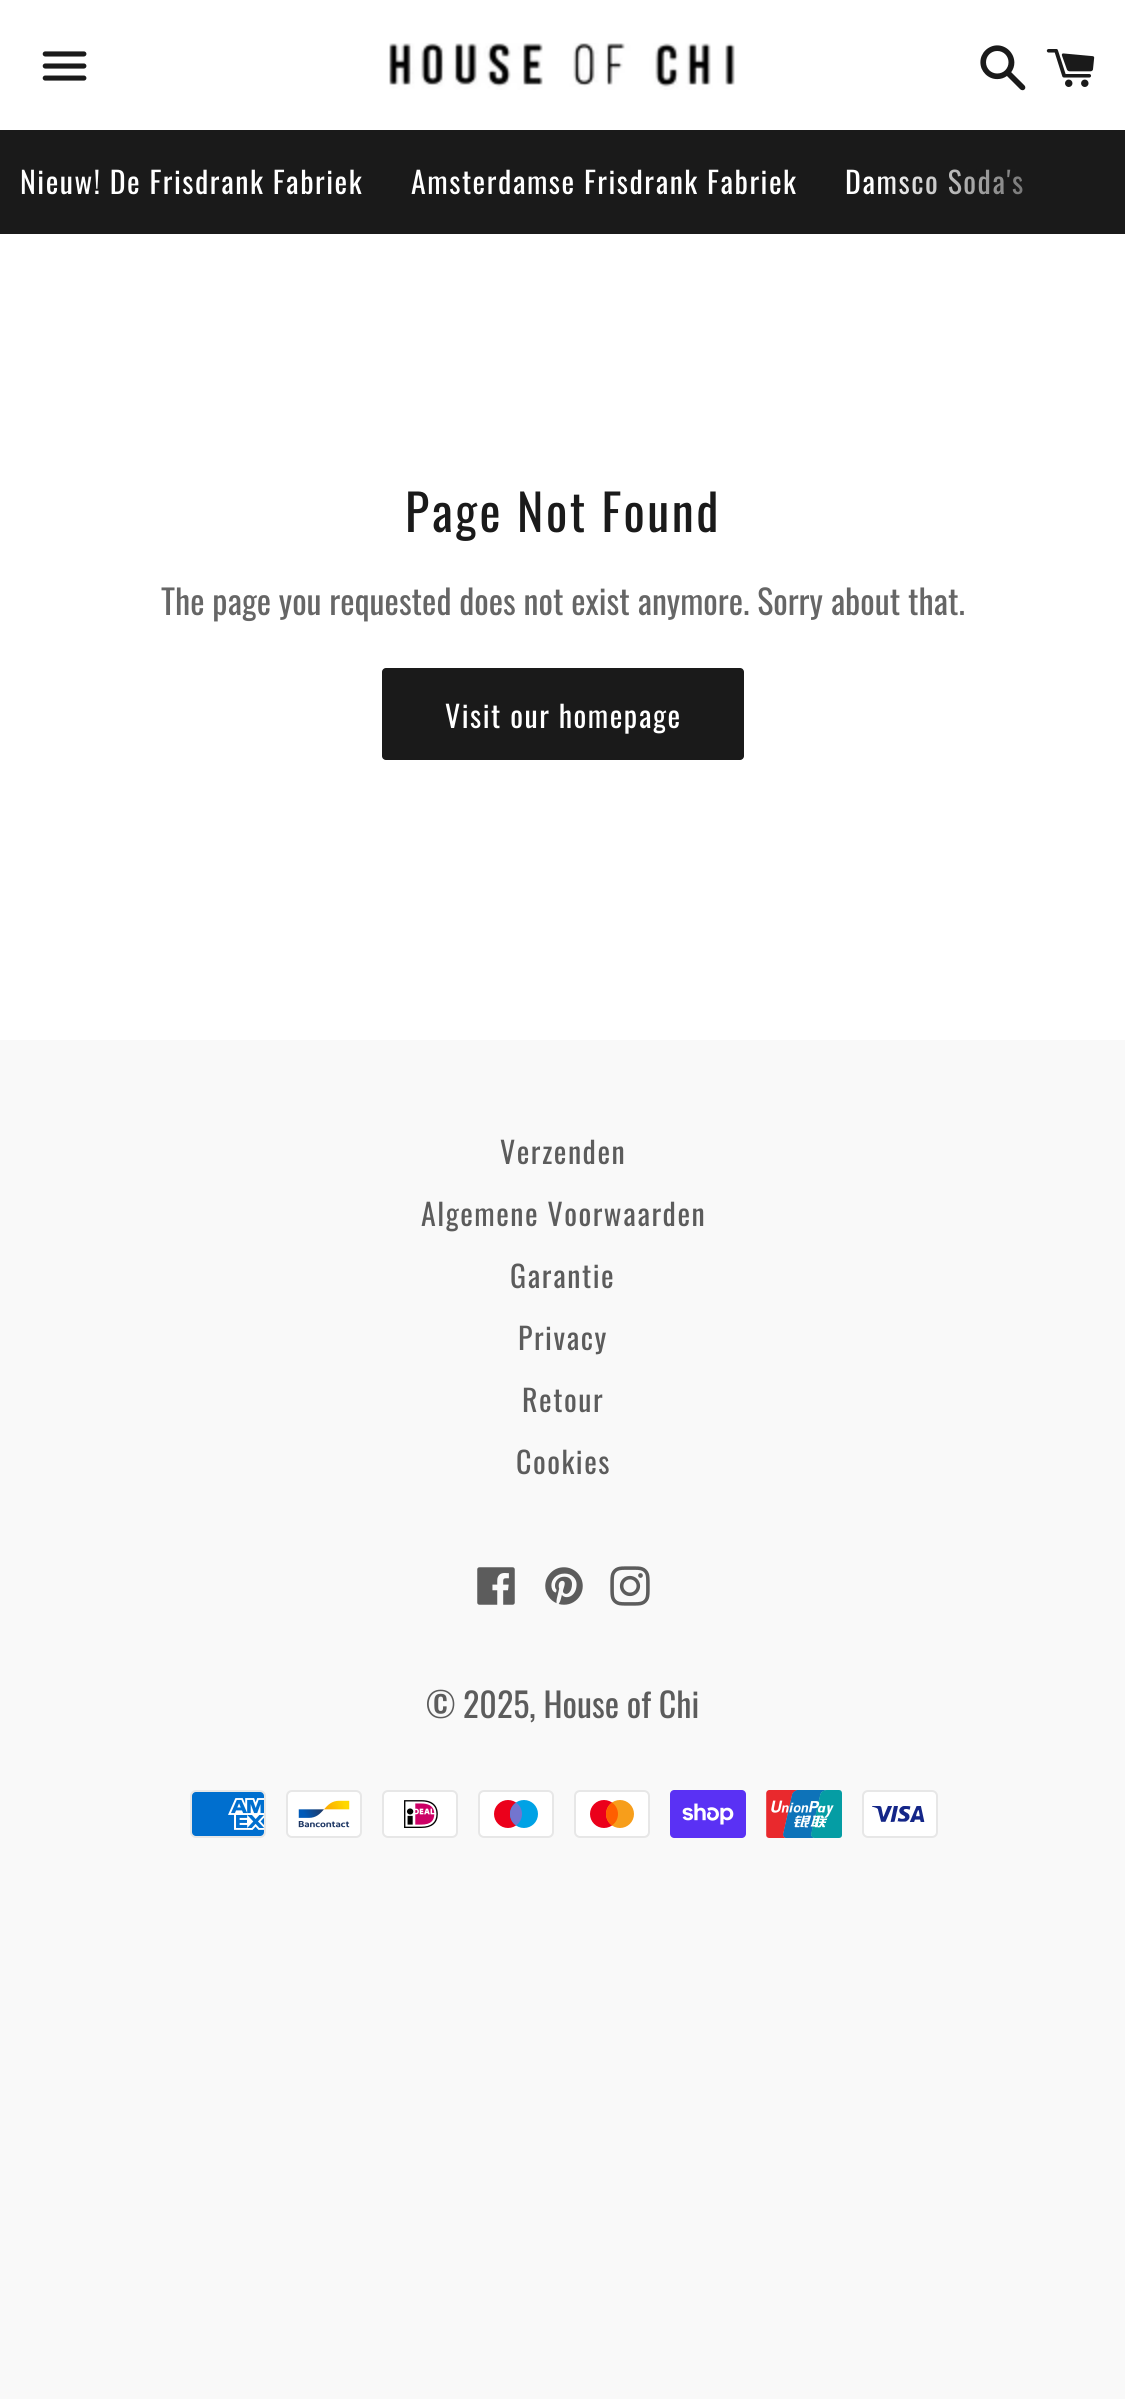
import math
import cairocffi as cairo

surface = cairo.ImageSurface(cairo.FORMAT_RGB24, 1125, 2399)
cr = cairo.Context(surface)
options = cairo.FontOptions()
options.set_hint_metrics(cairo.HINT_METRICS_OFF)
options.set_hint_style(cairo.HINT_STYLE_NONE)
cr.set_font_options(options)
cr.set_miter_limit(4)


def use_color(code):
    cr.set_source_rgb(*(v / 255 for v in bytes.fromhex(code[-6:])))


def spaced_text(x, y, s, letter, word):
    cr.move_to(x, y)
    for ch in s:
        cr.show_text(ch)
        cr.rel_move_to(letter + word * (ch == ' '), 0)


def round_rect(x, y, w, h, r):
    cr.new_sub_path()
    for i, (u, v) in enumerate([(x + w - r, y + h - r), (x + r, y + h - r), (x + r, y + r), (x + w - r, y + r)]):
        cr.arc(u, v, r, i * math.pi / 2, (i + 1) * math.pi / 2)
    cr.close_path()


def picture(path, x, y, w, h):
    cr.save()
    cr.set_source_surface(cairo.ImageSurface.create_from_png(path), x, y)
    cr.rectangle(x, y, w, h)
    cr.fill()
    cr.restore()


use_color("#f9f9f9")
cr.paint()
use_color("#ffffff")
cr.rectangle(0, 0, 1125, 1040)
cr.fill()
picture("img1.png", 42, 51, 45, 30)
picture("img2.png", 389, 43, 346, 47)
picture("img3.png", 980, 45, 46, 46)
picture("img4.png", 1046, 49, 49, 38)
use_color("#1a1a1a")
cr.rectangle(0, 130, 1125, 104)
cr.fill()
cr.select_font_face("Oswald")
cr.set_font_size(30)
use_color("#ffffff")
spaced_text(20, 194, "Nieuw! De Frisdrank Fabriek", 1.5, 0)
spaced_text(411, 194, "Amsterdamse Frisdrank Fabriek", 1.5, 0)
spaced_text(845, 194, "Damsco Soda's", 1.5, 0)
gradient = cairo.LinearGradient(876, 182, 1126, 182)
gradient.add_color_stop_rgba(0, 0.102, 0.102, 0.102, 0)
gradient.add_color_stop_rgba(1, 0.102, 0.102, 0.102, 1)
cr.set_source(gradient)
cr.rectangle(881, 169, 142, 26)
cr.fill()
cr.set_font_size(50)
use_color("#1a1a1a")
spaced_text(405, 532, "Page Not Found", 2.5, 0)
cr.set_font_size(34)
use_color("#666666")
cr.move_to(161, 615)
cr.show_text("The page you requested does not exist anymore. Sorry about that.")
use_color("#1a1a1a")
round_rect(382, 668, 362, 92, 4)
cr.fill()
cr.set_font_size(30)
use_color("#ffffff")
spaced_text(445, 728, "Visit our homepage", 1.5, 0)
use_color("#5c5c5c")
spaced_text(500, 1164, "Verzenden", 1.5, 0)
spaced_text(421, 1226, "Algemene Voorwaarden", 1.5, 0)
spaced_text(510, 1288, "Garantie", 1.5, 0)
spaced_text(518, 1350, "Privacy", 1.5, 0)
spaced_text(522, 1412, "Retour", 1.5, 0)
spaced_text(516, 1474, "Cookies", 1.5, 0)
picture("img5.png", 477, 1567, 38, 38)
picture("img6.png", 545, 1567, 38, 38)
picture("img7.png", 610, 1566, 40, 40)
cr.set_font_size(34)
cr.move_to(426, 1718)
cr.show_text("© 2025, House of Chi")
picture("img8.png", 190, 1790, 76, 48)
picture("img9.png", 286, 1790, 76, 48)
picture("img10.png", 382, 1790, 76, 48)
picture("img11.png", 478, 1790, 76, 48)
picture("img12.png", 574, 1790, 76, 48)
picture("img13.png", 670, 1790, 76, 48)
picture("img14.png", 766, 1790, 76, 48)
picture("img15.png", 862, 1790, 76, 48)
surface.write_to_png("result.png")
